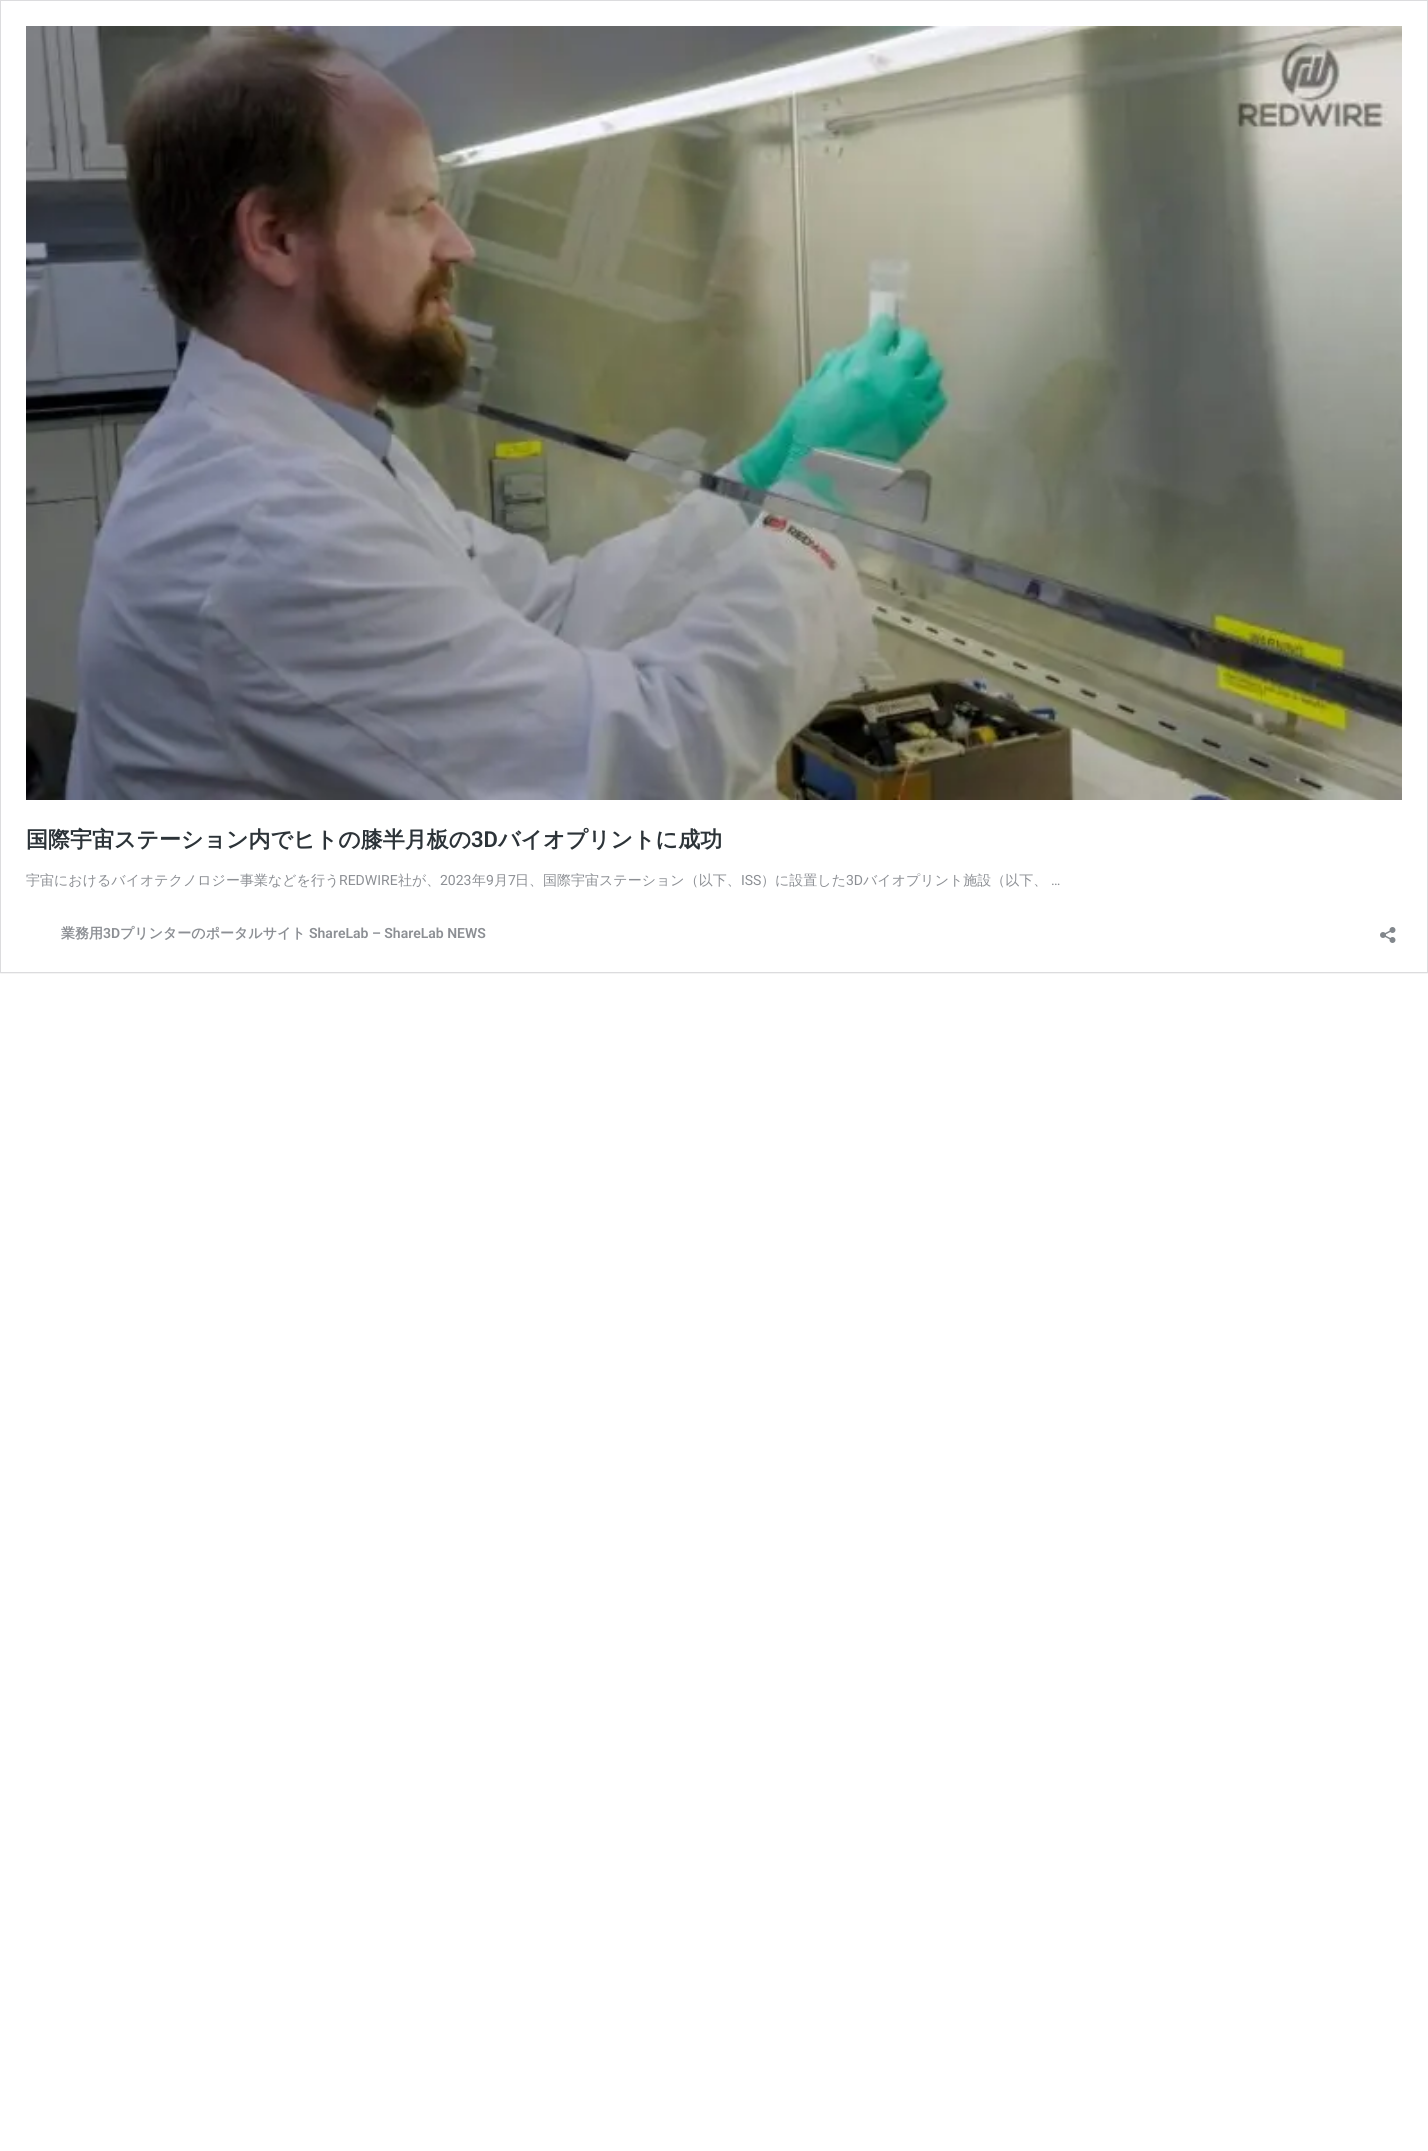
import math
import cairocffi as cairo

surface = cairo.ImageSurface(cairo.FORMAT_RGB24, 1428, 2151)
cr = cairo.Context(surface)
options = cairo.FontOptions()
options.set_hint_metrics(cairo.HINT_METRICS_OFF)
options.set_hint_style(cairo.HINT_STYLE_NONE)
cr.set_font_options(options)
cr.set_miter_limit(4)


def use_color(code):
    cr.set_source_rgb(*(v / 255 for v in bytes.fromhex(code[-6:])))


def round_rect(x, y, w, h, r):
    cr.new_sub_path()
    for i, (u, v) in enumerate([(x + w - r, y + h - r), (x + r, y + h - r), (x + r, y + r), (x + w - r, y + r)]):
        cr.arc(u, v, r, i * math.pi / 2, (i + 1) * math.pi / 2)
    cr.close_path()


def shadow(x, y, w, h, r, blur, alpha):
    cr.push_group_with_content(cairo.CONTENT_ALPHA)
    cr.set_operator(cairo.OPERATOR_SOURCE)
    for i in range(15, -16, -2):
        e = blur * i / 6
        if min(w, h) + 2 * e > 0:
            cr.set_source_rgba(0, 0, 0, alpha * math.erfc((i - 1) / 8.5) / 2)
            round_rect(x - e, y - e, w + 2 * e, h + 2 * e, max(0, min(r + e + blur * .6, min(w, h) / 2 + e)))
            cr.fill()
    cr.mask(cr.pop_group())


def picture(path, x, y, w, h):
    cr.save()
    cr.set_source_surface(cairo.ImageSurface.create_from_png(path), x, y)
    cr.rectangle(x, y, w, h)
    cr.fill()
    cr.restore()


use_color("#ffffff")
cr.paint()
cr.save()
cr.rectangle(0, 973, 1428, 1)
cr.clip()
use_color("#000000")
shadow(0, 1, 1428, 973, 0, 0.5, 0.05)
cr.restore()
cr.rectangle(0.5, 0.5, 1427, 972)
use_color("#dcdcde")
cr.set_line_width(1)
cr.stroke()
picture("img1.png", 26, 26, 1376, 774)
cr.select_font_face("WenQuanYi Zen Hei", cairo.FONT_SLANT_NORMAL, cairo.FONT_WEIGHT_BOLD)
cr.set_font_size(22)
use_color("#2c3338")
cr.move_to(26, 847)
cr.show_text("国際宇宙ステーション内でヒトの膝半月板の")
cr.select_font_face("Roboto SemiBold")
cr.move_to(471, 847)
cr.show_text("3D")
cr.select_font_face("WenQuanYi Zen Hei", cairo.FONT_SLANT_NORMAL, cairo.FONT_WEIGHT_BOLD)
cr.move_to(498, 847)
cr.show_text("バイオプリントに成功")
cr.select_font_face("WenQuanYi Zen Hei Medium")
cr.set_font_size(14)
use_color("#8c8f94")
cr.move_to(26, 885)
cr.show_text("宇宙におけるバイオテクノロジー事業などを行う")
cr.select_font_face("Roboto")
cr.move_to(339, 885)
cr.show_text("REDWIRE")
cr.select_font_face("WenQuanYi Zen Hei Medium")
cr.move_to(398, 885)
cr.show_text("社が、")
cr.select_font_face("Roboto")
cr.move_to(440, 885)
cr.show_text("2023")
cr.select_font_face("WenQuanYi Zen Hei Medium")
cr.move_to(472, 885)
cr.show_text("年")
cr.select_font_face("Roboto")
cr.move_to(486, 885)
cr.show_text("9")
cr.select_font_face("WenQuanYi Zen Hei Medium")
cr.move_to(494, 885)
cr.show_text("月")
cr.select_font_face("Roboto")
cr.move_to(508, 885)
cr.show_text("7")
cr.select_font_face("WenQuanYi Zen Hei Medium")
cr.move_to(515, 885)
cr.show_text("日、国際宇宙ステーション（以下、")
cr.select_font_face("Roboto")
cr.move_to(741, 885)
cr.show_text("ISS")
cr.select_font_face("WenQuanYi Zen Hei Medium")
cr.move_to(761, 885)
cr.show_text("）に設置した")
cr.select_font_face("Roboto")
cr.move_to(846, 885)
cr.show_text("3D")
cr.select_font_face("WenQuanYi Zen Hei Medium")
cr.move_to(863, 885)
cr.show_text("バイオプリント施設（以下、")
cr.select_font_face("Roboto")
cr.move_to(1051, 885)
cr.show_text("…")
cr.select_font_face("WenQuanYi Zen Hei", cairo.FONT_SLANT_NORMAL, cairo.FONT_WEIGHT_BOLD)
cr.move_to(61, 938)
cr.show_text("業務用")
cr.select_font_face("Roboto SemiBold")
cr.move_to(103, 938)
cr.show_text("3D")
cr.select_font_face("WenQuanYi Zen Hei", cairo.FONT_SLANT_NORMAL, cairo.FONT_WEIGHT_BOLD)
cr.move_to(120, 938)
cr.show_text("プリンターのポータルサイト")
cr.select_font_face("Roboto SemiBold")
cr.move_to(309, 938)
cr.show_text("ShareLab – ShareLab NEWS")
picture("img2.png", 1380, 927, 16, 16)
surface.write_to_png("result.png")
